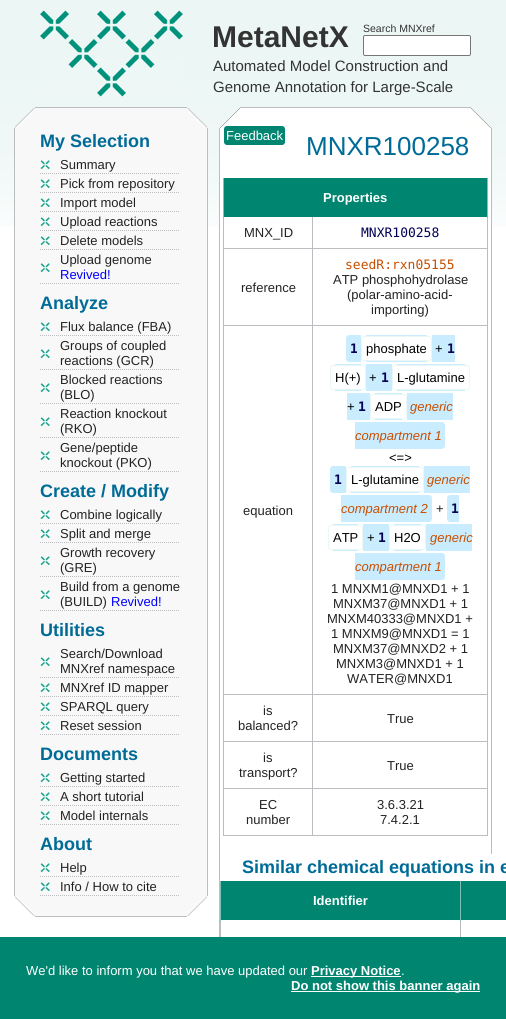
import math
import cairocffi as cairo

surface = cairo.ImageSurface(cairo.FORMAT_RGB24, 506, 1019)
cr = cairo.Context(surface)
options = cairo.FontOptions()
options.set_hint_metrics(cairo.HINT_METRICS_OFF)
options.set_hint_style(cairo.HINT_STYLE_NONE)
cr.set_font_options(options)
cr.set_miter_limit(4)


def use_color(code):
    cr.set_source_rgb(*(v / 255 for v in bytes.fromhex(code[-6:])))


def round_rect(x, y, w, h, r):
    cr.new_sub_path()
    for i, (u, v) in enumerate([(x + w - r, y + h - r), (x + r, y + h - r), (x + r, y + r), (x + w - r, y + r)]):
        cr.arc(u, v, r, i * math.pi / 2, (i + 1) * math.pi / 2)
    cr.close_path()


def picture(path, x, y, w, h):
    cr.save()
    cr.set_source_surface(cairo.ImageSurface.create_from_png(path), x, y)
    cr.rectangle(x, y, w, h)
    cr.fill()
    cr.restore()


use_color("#ffffff")
cr.paint()
picture("img1.png", 0, 0, 506, 227)
cr.select_font_face("Liberation Sans")
cr.set_font_size(10.5)
use_color("#333333")
cr.move_to(363, 32)
cr.show_text("Search MNXref")
use_color("#ffffff")
round_rect(363.5, 35.5, 107, 20, 1.5)
cr.fill_preserve()
use_color("#767676")
cr.set_line_width(1)
cr.stroke()
picture("img2.png", 40, 10, 143, 87)
cr.select_font_face("Liberation Sans", cairo.FONT_SLANT_NORMAL, cairo.FONT_WEIGHT_BOLD)
cr.set_font_size(30)
use_color("#333333")
cr.move_to(212, 47)
cr.show_text("MetaNetX")
cr.select_font_face("Liberation Sans")
cr.set_font_size(15)
cr.move_to(213, 71)
cr.show_text("Automated Model Construction and")
cr.move_to(213, 92)
cr.show_text("Genome Annotation for Large-Scale")
use_color("#f8f8f8")
cr.rectangle(35, 108, 152, 20)
cr.fill()
use_color("#bcbdc0")
cr.rectangle(35, 107, 152, 1)
cr.fill()
picture("img3.png", 15, 108, 20, 20)
picture("img4.png", 187, 108, 20, 20)
use_color("#f8f8f8")
cr.rectangle(15, 128, 192, 768)
cr.fill()
use_color("#bcbdc0")
cr.rectangle(207, 128, 1, 768)
cr.fill()
cr.rectangle(14, 128, 1, 768)
cr.fill()
cr.select_font_face("Liberation Sans", cairo.FONT_SLANT_NORMAL, cairo.FONT_WEIGHT_BOLD)
cr.set_font_size(18)
use_color("#006b97")
cr.move_to(40, 147)
cr.show_text("My Selection")
picture("img5.png", 40, 173, 139, 1)
picture("img6.png", 40, 160, 10, 9)
cr.select_font_face("Liberation Sans")
cr.set_font_size(13)
use_color("#222222")
cr.move_to(60, 169)
cr.show_text("Summary")
picture("img5.png", 40, 192, 139, 1)
picture("img6.png", 40, 179, 10, 9)
cr.move_to(60, 188)
cr.show_text("Pick from repository")
picture("img5.png", 40, 211, 139, 1)
picture("img6.png", 40, 198, 10, 9)
cr.move_to(60, 207)
cr.show_text("Import model")
picture("img5.png", 40, 230, 139, 1)
picture("img6.png", 40, 217, 10, 9)
cr.move_to(60, 226)
cr.show_text("Upload reactions")
picture("img5.png", 40, 249, 139, 1)
picture("img6.png", 40, 236, 10, 9)
cr.move_to(60, 245)
cr.show_text("Delete models")
picture("img5.png", 40, 283, 139, 1)
picture("img6.png", 40, 263, 10, 9)
cr.move_to(60, 264)
cr.show_text("Upload genome")
use_color("#0000ff")
cr.move_to(60, 279)
cr.show_text("Revived!")
cr.select_font_face("Liberation Sans", cairo.FONT_SLANT_NORMAL, cairo.FONT_WEIGHT_BOLD)
cr.set_font_size(18)
use_color("#006b97")
cr.move_to(40, 309)
cr.show_text("Analyze")
picture("img5.png", 40, 335, 139, 1)
picture("img6.png", 40, 322, 10, 9)
cr.select_font_face("Liberation Sans")
cr.set_font_size(13)
use_color("#222222")
cr.move_to(60, 331)
cr.show_text("Flux balance (FBA)")
picture("img5.png", 40, 369, 139, 1)
picture("img6.png", 40, 349, 10, 9)
cr.move_to(60, 350)
cr.show_text("Groups of coupled")
cr.move_to(60, 365)
cr.show_text("reactions (GCR)")
picture("img5.png", 40, 403, 139, 1)
picture("img6.png", 40, 383, 10, 9)
cr.move_to(60, 384)
cr.show_text("Blocked reactions")
cr.move_to(60, 399)
cr.show_text("(BLO)")
picture("img5.png", 40, 437, 139, 1)
picture("img6.png", 40, 417, 10, 9)
cr.move_to(60, 418)
cr.show_text("Reaction knockout")
cr.move_to(60, 433)
cr.show_text("(RKO)")
picture("img5.png", 40, 471, 139, 1)
picture("img6.png", 40, 451, 10, 9)
cr.move_to(60, 452)
cr.show_text("Gene/peptide")
cr.move_to(60, 467)
cr.show_text("knockout (PKO)")
cr.select_font_face("Liberation Sans", cairo.FONT_SLANT_NORMAL, cairo.FONT_WEIGHT_BOLD)
cr.set_font_size(18)
use_color("#006b97")
cr.move_to(40, 497)
cr.show_text("Create / Modify")
picture("img5.png", 40, 523, 139, 1)
picture("img6.png", 40, 510, 10, 9)
cr.select_font_face("Liberation Sans")
cr.set_font_size(13)
use_color("#222222")
cr.move_to(60, 519)
cr.show_text("Combine logically")
picture("img5.png", 40, 542, 139, 1)
picture("img6.png", 40, 529, 10, 9)
cr.move_to(60, 538)
cr.show_text("Split and merge")
picture("img5.png", 40, 576, 139, 1)
picture("img6.png", 40, 556, 10, 9)
cr.move_to(60, 557)
cr.show_text("Growth recovery")
cr.move_to(60, 572)
cr.show_text("(GRE)")
picture("img5.png", 40, 610, 139, 1)
picture("img6.png", 40, 590, 10, 9)
cr.move_to(60, 591)
cr.show_text("Build from a genome")
cr.move_to(60, 606)
cr.show_text("(BUILD)")
use_color("#0000ff")
cr.move_to(111, 606)
cr.show_text("Revived!")
cr.select_font_face("Liberation Sans", cairo.FONT_SLANT_NORMAL, cairo.FONT_WEIGHT_BOLD)
cr.set_font_size(18)
use_color("#006b97")
cr.move_to(40, 636)
cr.show_text("Utilities")
picture("img5.png", 40, 677, 139, 1)
picture("img6.png", 40, 657, 10, 9)
cr.select_font_face("Liberation Sans")
cr.set_font_size(13)
use_color("#222222")
cr.move_to(60, 658)
cr.show_text("Search/Download")
cr.move_to(60, 673)
cr.show_text("MNXref namespace")
picture("img5.png", 40, 696, 139, 1)
picture("img6.png", 40, 683, 10, 9)
cr.move_to(60, 692)
cr.show_text("MNXref ID mapper")
picture("img5.png", 40, 715, 139, 1)
picture("img6.png", 40, 702, 10, 9)
cr.move_to(60, 711)
cr.show_text("SPARQL query")
picture("img5.png", 40, 734, 139, 1)
picture("img6.png", 40, 721, 10, 9)
cr.move_to(60, 730)
cr.show_text("Reset session")
cr.select_font_face("Liberation Sans", cairo.FONT_SLANT_NORMAL, cairo.FONT_WEIGHT_BOLD)
cr.set_font_size(18)
use_color("#006b97")
cr.move_to(40, 760)
cr.show_text("Documents")
picture("img5.png", 40, 786, 139, 1)
picture("img6.png", 40, 773, 10, 9)
cr.select_font_face("Liberation Sans")
cr.set_font_size(13)
use_color("#222222")
cr.move_to(60, 782)
cr.show_text("Getting started")
picture("img5.png", 40, 805, 139, 1)
picture("img6.png", 40, 792, 10, 9)
cr.move_to(60, 801)
cr.show_text("A short tutorial")
picture("img5.png", 40, 824, 139, 1)
picture("img6.png", 40, 811, 10, 9)
cr.move_to(60, 820)
cr.show_text("Model internals")
cr.select_font_face("Liberation Sans", cairo.FONT_SLANT_NORMAL, cairo.FONT_WEIGHT_BOLD)
cr.set_font_size(18)
use_color("#006b97")
cr.move_to(40, 850)
cr.show_text("About")
picture("img5.png", 40, 876, 139, 1)
picture("img6.png", 40, 863, 10, 9)
cr.select_font_face("Liberation Sans")
cr.set_font_size(13)
use_color("#222222")
cr.move_to(60, 872)
cr.show_text("Help")
picture("img5.png", 40, 895, 139, 1)
picture("img6.png", 40, 882, 10, 9)
cr.move_to(60, 891)
cr.show_text("Info / How to cite")
use_color("#f8f8f8")
cr.rectangle(35, 896, 152, 20)
cr.fill()
use_color("#bcbdc0")
cr.rectangle(35, 916, 152, 1)
cr.fill()
picture("img7.png", 15, 896, 20, 20)
picture("img8.png", 187, 896, 20, 20)
use_color("#ffffff")
cr.rectangle(240, 108, 231, 20)
cr.fill()
use_color("#bcbdc0")
cr.rectangle(240, 107, 231, 1)
cr.fill()
picture("img9.png", 220, 108, 20, 20)
picture("img10.png", 471, 108, 20, 20)
use_color("#ffffff")
cr.rectangle(220, 128, 271, 99)
cr.fill()
use_color("#bcbdc0")
cr.rectangle(491, 128, 1, 726)
cr.fill()
cr.rectangle(219, 128, 1, 809)
cr.fill()
use_color("#008570")
round_rect(224, 126, 61, 19, 3)
cr.fill()
use_color("#ffffff")
cr.move_to(226, 140)
cr.show_text("Feedback")
cr.set_font_size(26)
use_color("#006b97")
cr.move_to(306, 155)
cr.show_text("MNXR100258")
use_color("#008570")
cr.rectangle(224, 178, 263, 39)
cr.fill()
use_color("#bcbdc0")
cr.rectangle(487, 217, 1, 619)
cr.fill()
use_color("#80c1b7")
cr.rectangle(487, 178, 1, 40)
cr.fill()
use_color("#bcbdc0")
cr.rectangle(312, 835, 176, 1)
cr.fill()
cr.rectangle(312, 788, 1, 48)
cr.fill()
cr.rectangle(312, 788, 176, 1)
cr.fill()
cr.rectangle(312, 741, 1, 48)
cr.fill()
cr.rectangle(312, 741, 176, 1)
cr.fill()
cr.rectangle(312, 694, 1, 48)
cr.fill()
cr.rectangle(312, 694, 176, 1)
cr.fill()
cr.rectangle(312, 325, 1, 370)
cr.fill()
cr.rectangle(312, 325, 176, 1)
cr.fill()
cr.rectangle(312, 248, 1, 78)
cr.fill()
cr.rectangle(312, 248, 176, 1)
cr.fill()
cr.rectangle(312, 217, 1, 32)
cr.fill()
cr.rectangle(223, 835, 90, 1)
cr.fill()
cr.rectangle(223, 788, 1, 48)
cr.fill()
cr.rectangle(223, 788, 90, 1)
cr.fill()
cr.rectangle(223, 741, 1, 48)
cr.fill()
cr.rectangle(223, 741, 90, 1)
cr.fill()
cr.rectangle(223, 694, 1, 48)
cr.fill()
cr.rectangle(223, 694, 90, 1)
cr.fill()
cr.rectangle(223, 325, 1, 370)
cr.fill()
cr.rectangle(223, 325, 90, 1)
cr.fill()
cr.rectangle(223, 248, 1, 78)
cr.fill()
cr.rectangle(223, 248, 90, 1)
cr.fill()
cr.rectangle(223, 217, 1, 32)
cr.fill()
use_color("#80c1b7")
cr.rectangle(223, 178, 1, 40)
cr.fill()
cr.select_font_face("Liberation Sans", cairo.FONT_SLANT_NORMAL, cairo.FONT_WEIGHT_BOLD)
cr.set_font_size(13)
use_color("#ffffff")
cr.move_to(323, 202)
cr.show_text("Properties")
cr.select_font_face("Liberation Sans")
use_color("#222222")
cr.move_to(244, 237)
cr.show_text("MNX_ID")
cr.select_font_face("DejaVu Sans Mono")
use_color("#040255")
cr.move_to(361, 237)
cr.show_text("MNXR100258")
cr.select_font_face("Liberation Sans")
use_color("#222222")
cr.move_to(241, 292)
cr.show_text("reference")
cr.select_font_face("DejaVu Sans Mono")
use_color("#c74f00")
cr.move_to(345, 269)
cr.show_text("seedR:rxn05155")
cr.select_font_face("Liberation Sans")
use_color("#222222")
cr.move_to(333, 284)
cr.show_text("ATP phosphohydrolase")
cr.move_to(347, 299)
cr.show_text("(polar-amino-acid-")
cr.move_to(371, 314)
cr.show_text("importing)")
cr.move_to(243, 515)
cr.show_text("equation")
use_color("#caecff")
cr.new_path()
cr.move_to(349, 335)
cr.line_to(357, 335)
cr.line_to(357, 362)
cr.line_to(349, 362)
cr.curve_to(347.5, 362, 346, 360.5, 346, 359)
cr.line_to(346, 338)
cr.curve_to(346, 336.5, 347.5, 335, 349, 335)
cr.close_path()
cr.fill()
cr.select_font_face("DejaVu Sans Mono", cairo.FONT_SLANT_NORMAL, cairo.FONT_WEIGHT_BOLD)
use_color("#040255")
cr.move_to(350, 353)
cr.show_text("1")
use_color("#caecff")
cr.rectangle(357, 335, 4, 27)
cr.fill()
cr.rectangle(366, 335, 61, 27)
cr.fill()
use_color("#ffffff")
round_rect(361.5, 336.5, 70, 24, 2.5)
cr.fill_preserve()
use_color("#ebf6f5")
cr.stroke()
cr.select_font_face("Liberation Sans")
use_color("#000000")
cr.move_to(366, 353)
cr.show_text("phosphate")
use_color("#caecff")
cr.rectangle(432, 335, 23, 27)
cr.fill()
use_color("#000000")
cr.move_to(435, 353)
cr.show_text("+")
cr.select_font_face("DejaVu Sans Mono", cairo.FONT_SLANT_NORMAL, cairo.FONT_WEIGHT_BOLD)
use_color("#040255")
cr.move_to(447, 353)
cr.show_text("1")
use_color("#caecff")
cr.rectangle(335, 364, 26, 27)
cr.fill()
use_color("#ffffff")
round_rect(330.5, 365.5, 35, 24, 2.5)
cr.fill_preserve()
use_color("#ebf6f5")
cr.stroke()
cr.select_font_face("Liberation Sans")
use_color("#000000")
cr.move_to(335, 382)
cr.show_text("H(+)")
use_color("#caecff")
cr.rectangle(366, 364, 26, 27)
cr.fill()
use_color("#000000")
cr.move_to(369, 382)
cr.show_text("+")
cr.select_font_face("DejaVu Sans Mono", cairo.FONT_SLANT_NORMAL, cairo.FONT_WEIGHT_BOLD)
use_color("#040255")
cr.move_to(381, 382)
cr.show_text("1")
use_color("#caecff")
cr.rectangle(397, 364, 68, 27)
cr.fill()
use_color("#ffffff")
round_rect(392.5, 365.5, 77, 24, 2.5)
cr.fill_preserve()
use_color("#ebf6f5")
cr.stroke()
cr.select_font_face("Liberation Sans")
use_color("#000000")
cr.move_to(397, 382)
cr.show_text("L-glutamine")
use_color("#caecff")
cr.rectangle(347, 393, 23, 27)
cr.fill()
use_color("#000000")
cr.move_to(347, 411)
cr.show_text("+")
cr.select_font_face("DejaVu Sans Mono", cairo.FONT_SLANT_NORMAL, cairo.FONT_WEIGHT_BOLD)
use_color("#040255")
cr.move_to(358, 411)
cr.show_text("1")
use_color("#caecff")
cr.rectangle(375, 393, 27, 27)
cr.fill()
use_color("#ffffff")
round_rect(370.5, 394.5, 36, 24, 2.5)
cr.fill_preserve()
use_color("#ebf6f5")
cr.stroke()
cr.select_font_face("Liberation Sans")
use_color("#000000")
cr.move_to(375, 411)
cr.show_text("ADP")
use_color("#caecff")
cr.rectangle(407, 393, 46, 27)
cr.fill()
cr.select_font_face("Liberation Sans", cairo.FONT_SLANT_ITALIC)
use_color("#c74f00")
cr.move_to(410, 411)
cr.show_text("generic")
use_color("#caecff")
cr.new_path()
cr.move_to(355, 422)
cr.line_to(442, 422)
cr.curve_to(443.5, 422, 445, 423.5, 445, 425)
cr.line_to(445, 446)
cr.curve_to(445, 447.5, 443.5, 449, 442, 449)
cr.line_to(355, 449)
cr.close_path()
cr.fill()
use_color("#c74f00")
cr.move_to(355, 440)
cr.show_text("compartment 1")
cr.select_font_face("Liberation Sans")
use_color("#000000")
cr.move_to(389, 462)
cr.show_text("<=>")
use_color("#caecff")
cr.new_path()
cr.move_to(333, 466)
cr.line_to(342, 466)
cr.line_to(342, 493)
cr.line_to(333, 493)
cr.curve_to(331.5, 493, 330, 491.5, 330, 490)
cr.line_to(330, 469)
cr.curve_to(330, 467.5, 331.5, 466, 333, 466)
cr.close_path()
cr.fill()
cr.select_font_face("DejaVu Sans Mono", cairo.FONT_SLANT_NORMAL, cairo.FONT_WEIGHT_BOLD)
use_color("#040255")
cr.move_to(334, 484)
cr.show_text("1")
use_color("#caecff")
cr.rectangle(342, 466, 4, 27)
cr.fill()
cr.rectangle(351, 466, 68, 27)
cr.fill()
use_color("#ffffff")
round_rect(346.5, 467.5, 77, 24, 2.5)
cr.fill_preserve()
use_color("#ebf6f5")
cr.stroke()
cr.select_font_face("Liberation Sans")
use_color("#000000")
cr.move_to(351, 484)
cr.show_text("L-glutamine")
use_color("#caecff")
cr.rectangle(424, 466, 46, 27)
cr.fill()
cr.select_font_face("Liberation Sans", cairo.FONT_SLANT_ITALIC)
use_color("#c74f00")
cr.move_to(427, 484)
cr.show_text("generic")
use_color("#caecff")
cr.new_path()
cr.move_to(341, 495)
cr.line_to(429, 495)
cr.curve_to(430.5, 495, 432, 496.5, 432, 498)
cr.line_to(432, 519)
cr.curve_to(432, 520.5, 430.5, 522, 429, 522)
cr.line_to(341, 522)
cr.close_path()
cr.fill()
use_color("#c74f00")
cr.move_to(341, 513)
cr.show_text("compartment 2")
cr.select_font_face("Liberation Sans")
use_color("#222222")
cr.move_to(436, 513)
cr.show_text("+")
use_color("#caecff")
cr.new_path()
cr.move_to(450, 495)
cr.line_to(459, 495)
cr.line_to(459, 522)
cr.line_to(450, 522)
cr.curve_to(448.5, 522, 447, 520.5, 447, 519)
cr.line_to(447, 498)
cr.curve_to(447, 496.5, 448.5, 495, 450, 495)
cr.close_path()
cr.fill()
cr.select_font_face("DejaVu Sans Mono", cairo.FONT_SLANT_NORMAL, cairo.FONT_WEIGHT_BOLD)
use_color("#040255")
cr.move_to(451, 513)
cr.show_text("1")
use_color("#caecff")
cr.rectangle(333, 524, 25, 27)
cr.fill()
use_color("#ffffff")
round_rect(328.5, 525.5, 34, 24, 2.5)
cr.fill_preserve()
use_color("#ebf6f5")
cr.stroke()
cr.select_font_face("Liberation Sans")
use_color("#000000")
cr.move_to(333, 542)
cr.show_text("ATP")
use_color("#caecff")
cr.rectangle(363, 524, 26, 27)
cr.fill()
use_color("#000000")
cr.move_to(367, 542)
cr.show_text("+")
cr.select_font_face("DejaVu Sans Mono", cairo.FONT_SLANT_NORMAL, cairo.FONT_WEIGHT_BOLD)
use_color("#040255")
cr.move_to(378, 542)
cr.show_text("1")
use_color("#caecff")
cr.rectangle(394, 524, 27, 27)
cr.fill()
use_color("#ffffff")
round_rect(389.5, 525.5, 36, 24, 2.5)
cr.fill_preserve()
use_color("#ebf6f5")
cr.stroke()
cr.select_font_face("Liberation Sans")
use_color("#000000")
cr.move_to(394, 542)
cr.show_text("H2O")
use_color("#caecff")
cr.rectangle(426, 524, 46, 27)
cr.fill()
cr.select_font_face("Liberation Sans", cairo.FONT_SLANT_ITALIC)
use_color("#c74f00")
cr.move_to(430, 542)
cr.show_text("generic")
use_color("#caecff")
cr.new_path()
cr.move_to(355, 553)
cr.line_to(442, 553)
cr.curve_to(443.5, 553, 445, 554.5, 445, 556)
cr.line_to(445, 577)
cr.curve_to(445, 578.5, 443.5, 580, 442, 580)
cr.line_to(355, 580)
cr.close_path()
cr.fill()
use_color("#c74f00")
cr.move_to(355, 571)
cr.show_text("compartment 1")
cr.select_font_face("Liberation Sans")
use_color("#222222")
cr.move_to(331, 593)
cr.show_text("1 MNXM1@MNXD1 + 1")
cr.move_to(333, 608)
cr.show_text("MNXM37@MNXD1 + 1")
cr.move_to(327, 623)
cr.show_text("MNXM40333@MNXD1 +")
cr.move_to(331, 638)
cr.show_text("1 MNXM9@MNXD1 = 1")
cr.move_to(333, 653)
cr.show_text("MNXM37@MNXD2 + 1")
cr.move_to(336, 668)
cr.show_text("MNXM3@MNXD1 + 1")
cr.move_to(347, 683)
cr.show_text("WATER@MNXD1")
cr.move_to(263, 715)
cr.show_text("is")
cr.move_to(238, 730)
cr.show_text("balanced?")
cr.move_to(387, 723)
cr.show_text("True")
cr.move_to(263, 762)
cr.show_text("is")
cr.move_to(239, 777)
cr.show_text("transport?")
cr.move_to(387, 770)
cr.show_text("True")
cr.move_to(259, 809)
cr.show_text("EC")
cr.move_to(246, 824)
cr.show_text("number")
cr.move_to(377, 809)
cr.show_text("3.6.3.21")
cr.move_to(380, 824)
cr.show_text("7.4.2.1")
cr.select_font_face("Liberation Sans", cairo.FONT_SLANT_NORMAL, cairo.FONT_WEIGHT_BOLD)
cr.set_font_size(18)
use_color("#006b97")
cr.move_to(242, 873)
cr.show_text("Similar chemical equations in e")
use_color("#008570")
cr.rectangle(221, 881, 239, 39)
cr.fill()
use_color("#bcbdc0")
cr.rectangle(220, 920, 1, 17)
cr.fill()
use_color("#80c1b7")
cr.rectangle(220, 881, 1, 40)
cr.fill()
cr.set_font_size(13)
use_color("#ffffff")
cr.move_to(313, 905)
cr.show_text("Identifier")
use_color("#008570")
cr.rectangle(461, 881, 45, 39)
cr.fill()
use_color("#bcbdc0")
cr.rectangle(460, 920, 1, 17)
cr.fill()
use_color("#80c1b7")
cr.rectangle(460, 881, 1, 40)
cr.fill()
use_color("#008570")
cr.rectangle(0, 937, 506, 82)
cr.fill()
cr.select_font_face("Liberation Sans")
use_color("#ffffff")
cr.move_to(26, 975)
cr.show_text("We'd like to inform you that we have updated our")
cr.rectangle(311, 976, 90, 1)
cr.fill()
cr.select_font_face("Liberation Sans", cairo.FONT_SLANT_NORMAL, cairo.FONT_WEIGHT_BOLD)
cr.move_to(311, 975)
cr.show_text("Privacy Notice")
cr.select_font_face("Liberation Sans")
cr.move_to(401, 975)
cr.show_text(".")
cr.rectangle(291, 991, 189, 1)
cr.fill()
cr.select_font_face("Liberation Sans", cairo.FONT_SLANT_NORMAL, cairo.FONT_WEIGHT_BOLD)
cr.move_to(291, 990)
cr.show_text("Do not show this banner again")
surface.write_to_png("result.png")
